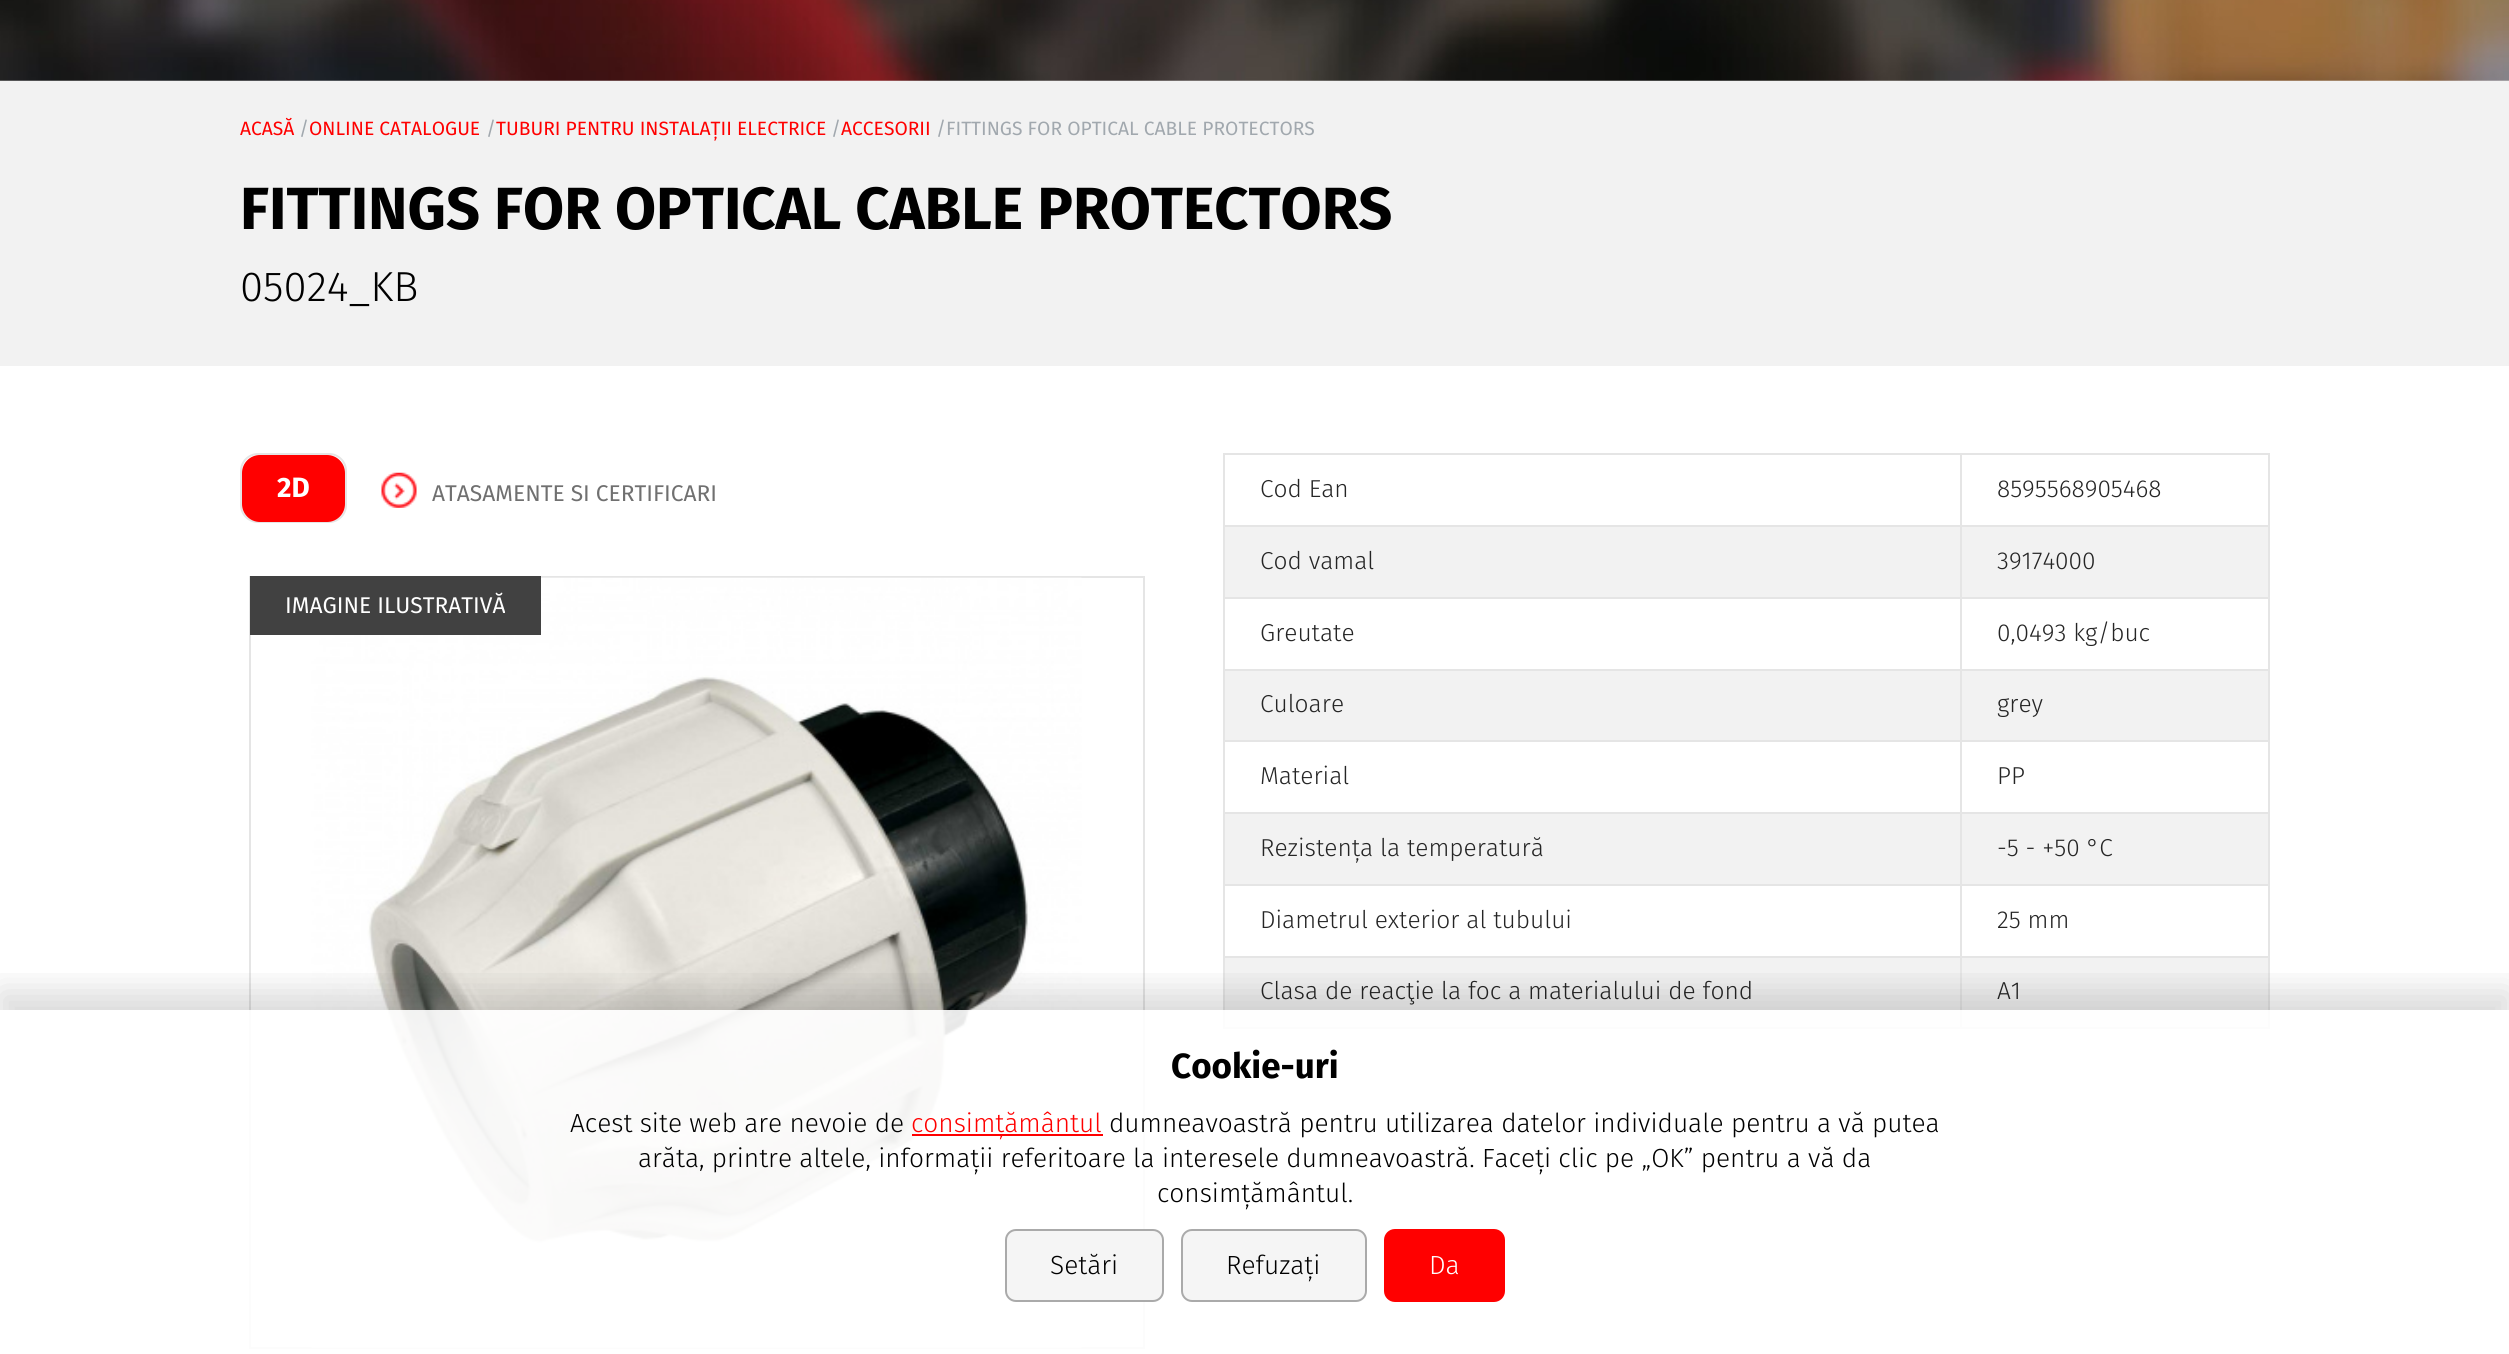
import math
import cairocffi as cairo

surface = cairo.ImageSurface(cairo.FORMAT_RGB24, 2509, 1354)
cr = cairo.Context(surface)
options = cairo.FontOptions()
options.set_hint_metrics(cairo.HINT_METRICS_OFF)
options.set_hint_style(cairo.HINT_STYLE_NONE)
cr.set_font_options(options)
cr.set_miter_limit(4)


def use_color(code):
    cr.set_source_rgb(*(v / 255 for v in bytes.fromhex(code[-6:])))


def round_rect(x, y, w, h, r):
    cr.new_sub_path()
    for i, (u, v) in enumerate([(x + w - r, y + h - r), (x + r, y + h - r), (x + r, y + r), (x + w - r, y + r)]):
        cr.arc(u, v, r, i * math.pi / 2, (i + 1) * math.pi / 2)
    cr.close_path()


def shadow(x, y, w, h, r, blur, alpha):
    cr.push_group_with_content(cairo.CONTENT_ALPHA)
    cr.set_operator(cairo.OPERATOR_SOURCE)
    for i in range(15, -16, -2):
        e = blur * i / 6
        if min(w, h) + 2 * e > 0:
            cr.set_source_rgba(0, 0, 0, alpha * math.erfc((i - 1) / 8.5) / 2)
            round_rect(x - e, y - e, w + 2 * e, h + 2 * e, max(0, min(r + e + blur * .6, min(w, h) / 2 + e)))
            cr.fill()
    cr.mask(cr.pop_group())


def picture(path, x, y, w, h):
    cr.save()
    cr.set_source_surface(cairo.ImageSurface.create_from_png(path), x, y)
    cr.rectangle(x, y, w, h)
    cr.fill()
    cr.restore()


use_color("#ffffff")
cr.paint()
picture("img1.png", 0, 0, 2509, 81)
use_color("#f2f2f2")
cr.rectangle(0, 81, 2509, 285)
cr.fill()
cr.select_font_face("Fira Sans")
cr.set_font_size(19.25)
use_color("#ff0000")
cr.move_to(240, 135)
cr.show_text("ACASĂ")
use_color("#a1a8ae")
cr.move_to(299, 135)
cr.show_text("/")
use_color("#ff0000")
cr.move_to(309, 135)
cr.show_text("ONLINE CATALOGUE")
use_color("#a1a8ae")
cr.move_to(486, 135)
cr.show_text("/")
use_color("#ff0000")
cr.move_to(496, 135)
cr.show_text("TUBURI PENTRU INSTALAȚII ELECTRICE")
use_color("#a1a8ae")
cr.move_to(831, 135)
cr.show_text("/")
use_color("#ff0000")
cr.move_to(841, 135)
cr.show_text("ACCESORII")
use_color("#a1a8ae")
cr.move_to(936, 135)
cr.show_text("/FITTINGS FOR OPTICAL CABLE PROTECTORS")
cr.select_font_face("Fira Sans", cairo.FONT_SLANT_NORMAL, cairo.FONT_WEIGHT_BOLD)
cr.set_font_size(59.5)
use_color("#000000")
cr.move_to(240, 229)
cr.show_text("FITTINGS FOR OPTICAL CABLE PROTECTORS")
cr.select_font_face("Fira Sans Light")
cr.set_font_size(42)
cr.move_to(240, 301)
cr.show_text("05024_KB")
round_rect(241, 454, 105, 68, 17)
use_color("#e5e5e5")
cr.stroke()
use_color("#ff0000")
round_rect(242, 455, 103, 67, 18)
cr.fill()
cr.select_font_face("Fira Sans", cairo.FONT_SLANT_NORMAL, cairo.FONT_WEIGHT_BOLD)
cr.set_font_size(28)
use_color("#ffffff")
cr.move_to(277, 497)
cr.show_text("2D")
picture("img2.png", 381, 472, 36, 36)
cr.select_font_face("Fira Sans")
cr.set_font_size(22.75)
use_color("#707070")
cr.move_to(432, 501)
cr.show_text("ATASAMENTE SI CERTIFICARI")
cr.rectangle(250, 577, 894, 771)
use_color("#e5e5e5")
cr.stroke()
picture("img3.png", 311, 577, 771, 771)
use_color("#414141")
cr.rectangle(250, 576, 291, 59)
cr.fill()
use_color("#ffffff")
cr.move_to(285, 613)
cr.show_text("IMAGINE ILUSTRATIVĂ")
use_color("#e5e5e5")
cr.rectangle(1960, 453, 310, 2)
cr.fill()
cr.rectangle(1960, 525, 310, 2)
cr.fill()
use_color("#f2f2f2")
cr.rectangle(1225, 527, 1043, 70)
cr.fill()
use_color("#e5e5e5")
cr.rectangle(1960, 597, 310, 2)
cr.fill()
cr.rectangle(1960, 669, 310, 2)
cr.fill()
use_color("#f2f2f2")
cr.rectangle(1225, 671, 1043, 69)
cr.fill()
use_color("#e5e5e5")
cr.rectangle(1960, 740, 310, 2)
cr.fill()
cr.rectangle(1960, 812, 310, 2)
cr.fill()
use_color("#f2f2f2")
cr.rectangle(1225, 814, 1043, 70)
cr.fill()
use_color("#e5e5e5")
cr.rectangle(1960, 884, 310, 2)
cr.fill()
cr.rectangle(1960, 956, 310, 2)
cr.fill()
use_color("#f2f2f2")
cr.rectangle(1225, 958, 1043, 69)
cr.fill()
use_color("#e5e5e5")
cr.rectangle(2268, 956, 2, 73)
cr.fill()
cr.rectangle(1960, 1027, 310, 2)
cr.fill()
cr.rectangle(1960, 956, 2, 73)
cr.fill()
cr.rectangle(1223, 956, 739, 2)
cr.fill()
cr.rectangle(1960, 884, 2, 73)
cr.fill()
cr.rectangle(1223, 884, 739, 2)
cr.fill()
cr.rectangle(1960, 812, 2, 74)
cr.fill()
cr.rectangle(1223, 812, 739, 2)
cr.fill()
cr.rectangle(1960, 740, 2, 74)
cr.fill()
cr.rectangle(1223, 740, 739, 2)
cr.fill()
cr.rectangle(1960, 669, 2, 73)
cr.fill()
cr.rectangle(1223, 669, 739, 2)
cr.fill()
cr.rectangle(1960, 597, 2, 73)
cr.fill()
cr.rectangle(1223, 597, 739, 2)
cr.fill()
cr.rectangle(1960, 525, 2, 74)
cr.fill()
cr.rectangle(1223, 525, 739, 2)
cr.fill()
cr.rectangle(1960, 453, 2, 74)
cr.fill()
cr.rectangle(1223, 453, 739, 2)
cr.fill()
cr.rectangle(1223, 1027, 739, 2)
cr.fill()
cr.rectangle(1223, 956, 2, 73)
cr.fill()
cr.rectangle(1223, 884, 2, 73)
cr.fill()
cr.rectangle(1223, 812, 2, 74)
cr.fill()
cr.rectangle(1223, 740, 2, 74)
cr.fill()
cr.rectangle(1223, 669, 2, 73)
cr.fill()
cr.rectangle(1223, 597, 2, 73)
cr.fill()
cr.rectangle(1223, 525, 2, 74)
cr.fill()
cr.rectangle(1223, 453, 2, 74)
cr.fill()
cr.select_font_face("Fira Sans Light")
cr.set_font_size(24.5)
use_color("#252525")
cr.move_to(1260, 497)
cr.show_text("Cod Ean")
use_color("#e5e5e5")
cr.rectangle(2268, 884, 2, 73)
cr.fill()
cr.rectangle(2268, 812, 2, 74)
cr.fill()
cr.rectangle(2268, 740, 2, 74)
cr.fill()
cr.rectangle(2268, 669, 2, 73)
cr.fill()
cr.rectangle(2268, 597, 2, 73)
cr.fill()
cr.rectangle(2268, 525, 2, 74)
cr.fill()
cr.rectangle(2268, 453, 2, 74)
cr.fill()
use_color("#252525")
cr.move_to(1997, 497)
cr.show_text("8595568905468")
cr.move_to(1260, 569)
cr.show_text("Cod vamal")
cr.move_to(1997, 569)
cr.show_text("39174000")
cr.move_to(1260, 641)
cr.show_text("Greutate")
cr.move_to(1997, 641)
cr.show_text("0,0493 kg/buc")
cr.move_to(1260, 712)
cr.show_text("Culoare")
cr.move_to(1997, 712)
cr.show_text("grey")
cr.move_to(1260, 784)
cr.show_text("Material")
cr.move_to(1997, 784)
cr.show_text("PP")
cr.move_to(1260, 856)
cr.show_text("Rezistența la temperatură")
cr.move_to(1997, 856)
cr.show_text("-5 - +50 °C")
cr.move_to(1260, 928)
cr.show_text("Diametrul exterior al tubului")
cr.move_to(1997, 928)
cr.show_text("25 mm")
cr.move_to(1260, 999)
cr.show_text("Clasa de reacţie la foc a materialului de fond")
cr.move_to(1997, 999)
cr.show_text("A1")
cr.save()
cr.rectangle(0, 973, 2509, 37)
cr.clip()
use_color("#000000")
shadow(0, 992, 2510, 345, 0, 17.5, 0.15)
cr.restore()
cr.set_source_rgba(1, 1, 1, 0.9)
cr.rectangle(249, 1010, 2021, 339)
cr.fill()
cr.select_font_face("Fira Sans", cairo.FONT_SLANT_NORMAL, cairo.FONT_WEIGHT_BOLD)
cr.set_font_size(35)
use_color("#000000")
cr.move_to(1171, 1078)
cr.show_text("Cookie-uri")
cr.select_font_face("Fira Sans Light")
cr.set_font_size(26.25)
cr.move_to(570, 1132)
cr.show_text("Acest site web are nevoie de")
use_color("#ff0000")
cr.rectangle(912, 1134, 191, 2)
cr.fill()
cr.move_to(911, 1132)
cr.show_text("consimțământul")
use_color("#000000")
cr.move_to(1109, 1132)
cr.show_text("dumneavoastră pentru utilizarea datelor individuale pentru a vă putea")
cr.move_to(638, 1167)
cr.show_text("arăta, printre altele, informații referitoare la interesele dumneavoastră. Faceți clic pe „OK” pentru a vă da")
cr.move_to(1157, 1202)
cr.show_text("consimțământul.")
use_color("#f5f5f5")
round_rect(1006, 1230, 157, 71, 10)
cr.fill_preserve()
use_color("#aaaaaa")
cr.stroke()
use_color("#000000")
cr.move_to(1050, 1274)
cr.show_text("Setări")
use_color("#f5f5f5")
round_rect(1182, 1230, 184, 71, 10)
cr.fill_preserve()
use_color("#aaaaaa")
cr.stroke()
use_color("#000000")
cr.move_to(1226, 1274)
cr.show_text("Refuzați")
use_color("#ff0000")
round_rect(1385, 1230, 119, 71, 10)
cr.fill_preserve()
cr.stroke()
use_color("#ffffff")
cr.move_to(1429, 1274)
cr.show_text("Da")
surface.write_to_png("result.png")
